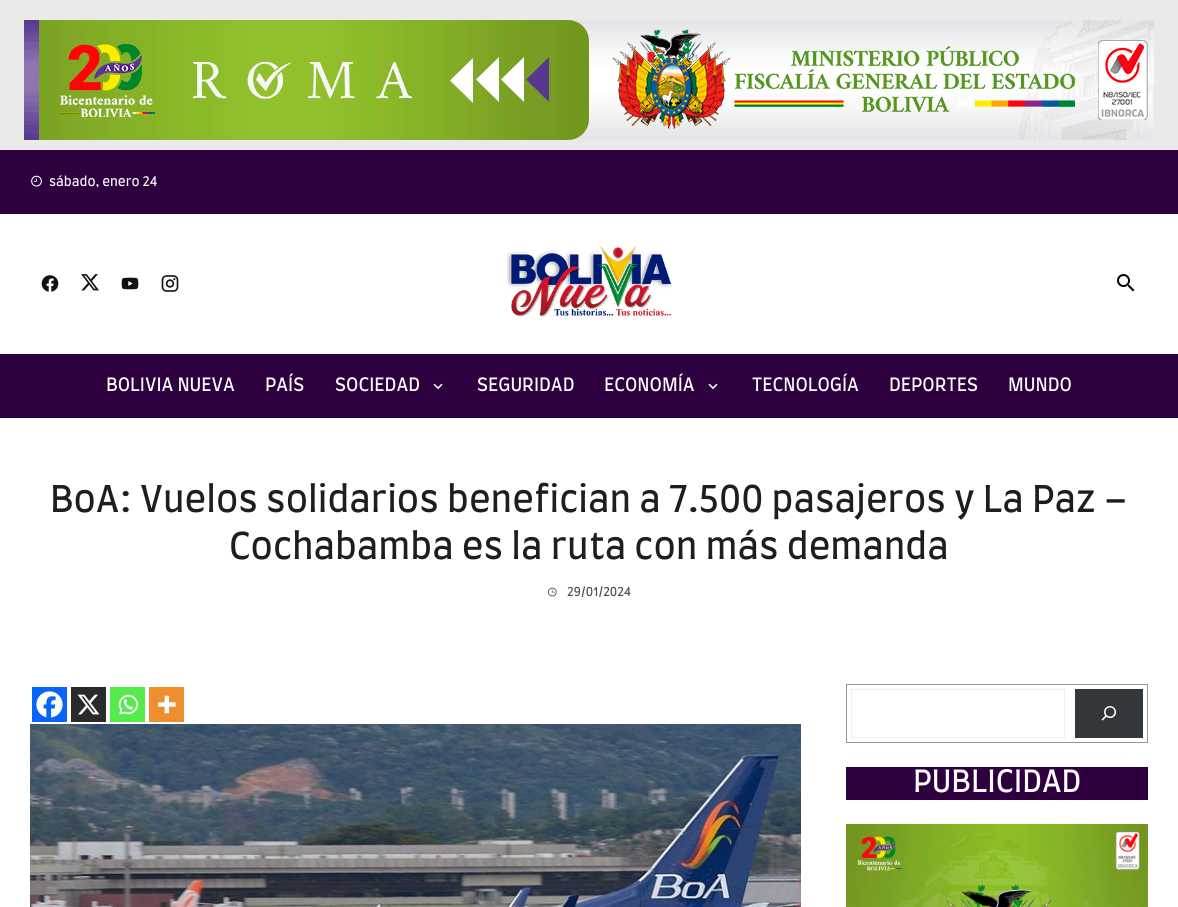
import math
import cairocffi as cairo

surface = cairo.ImageSurface(cairo.FORMAT_RGB24, 1178, 907)
cr = cairo.Context(surface)
options = cairo.FontOptions()
options.set_hint_metrics(cairo.HINT_METRICS_OFF)
options.set_hint_style(cairo.HINT_STYLE_NONE)
cr.set_font_options(options)
cr.set_miter_limit(4)


def use_color(code):
    cr.set_source_rgb(*(v / 255 for v in bytes.fromhex(code[-6:])))


def picture(path, x, y, w, h):
    cr.save()
    cr.set_source_surface(cairo.ImageSurface.create_from_png(path), x, y)
    cr.rectangle(x, y, w, h)
    cr.fill()
    cr.restore()


use_color("#eaeaea")
cr.paint()
picture("img1.png", 24, 20, 1130, 120)
use_color("#ffffff")
cr.rectangle(0, 214, 1178, 693)
cr.fill()
use_color("#2f003f")
cr.rectangle(0, 150, 1178, 64)
cr.fill()
picture("img2.png", 31, 175, 11, 12)
cr.select_font_face("Farro")
cr.set_font_size(13)
use_color("#ffffff")
cr.move_to(49, 186)
cr.show_text("sábado, enero 24")
picture("img3.png", 41, 275, 18, 17)
picture("img4.png", 81, 274, 18, 17)
picture("img5.png", 121, 277, 18, 13)
picture("img6.png", 161, 275, 18, 17)
picture("img7.png", 506, 246, 166, 71)
picture("img8.png", 1117, 274, 18, 18)
use_color("#2f003f")
cr.rectangle(0, 354, 1178, 64)
cr.fill()
cr.set_font_size(18)
use_color("#ffffff")
cr.move_to(106, 391)
cr.show_text("BOLIVIA NUEVA")
cr.move_to(265, 391)
cr.show_text("PAÍS")
cr.move_to(335, 391)
cr.show_text("SOCIEDAD")
picture("img9.png", 433, 383, 10, 7)
cr.move_to(477, 391)
cr.show_text("SEGURIDAD")
cr.move_to(604, 391)
cr.show_text("ECONOMÍA")
picture("img9.png", 708, 383, 10, 7)
cr.move_to(752, 391)
cr.show_text("TECNOLOGÍA")
cr.move_to(889, 391)
cr.show_text("DEPORTES")
cr.move_to(1008, 391)
cr.show_text("MUNDO")
cr.set_font_size(36)
use_color("#1e1e1e")
cr.move_to(50, 512)
cr.show_text("BoA: Vuelos solidarios benefician a 7.500 pasajeros y La Paz –")
cr.move_to(229, 559)
cr.show_text("Cochabamba es la ruta con más demanda")
picture("img10.png", 547, 587, 10, 10)
cr.set_font_size(12)
use_color("#4b4b4b")
cr.move_to(567, 596)
cr.show_text("29/01/2024")
use_color("#0765fe")
cr.rectangle(32, 687, 35, 35)
cr.fill()
picture("img11.png", 36, 691, 27, 27)
use_color("#2a2a2a")
cr.rectangle(71, 687, 35, 35)
cr.fill()
picture("img12.png", 77, 694, 23, 21)
use_color("#55eb4c")
cr.rectangle(110, 687, 35, 35)
cr.fill()
picture("img13.png", 118, 694, 20, 21)
use_color("#ee8e2d")
cr.rectangle(149, 687, 35, 35)
cr.fill()
picture("img14.png", 158, 695, 18, 19)
picture("img15.png", 30, 724, 771, 183)
cr.rectangle(846.5, 684.5, 301, 58)
use_color("#949494")
cr.set_line_width(1)
cr.stroke()
cr.rectangle(851.5, 689.5, 213, 48)
use_color("#eeeeee")
cr.stroke()
use_color("#32373c")
cr.rectangle(1075, 689, 68, 49)
cr.fill()
picture("img16.png", 1101, 706, 16, 15)
use_color("#2f003f")
cr.rectangle(846, 767, 302, 33)
cr.fill()
cr.set_font_size(30)
use_color("#ffffff")
cr.move_to(913, 792)
cr.show_text("PUBLICIDAD")
picture("img17.png", 846, 824, 302, 83)
surface.write_to_png("result.png")
